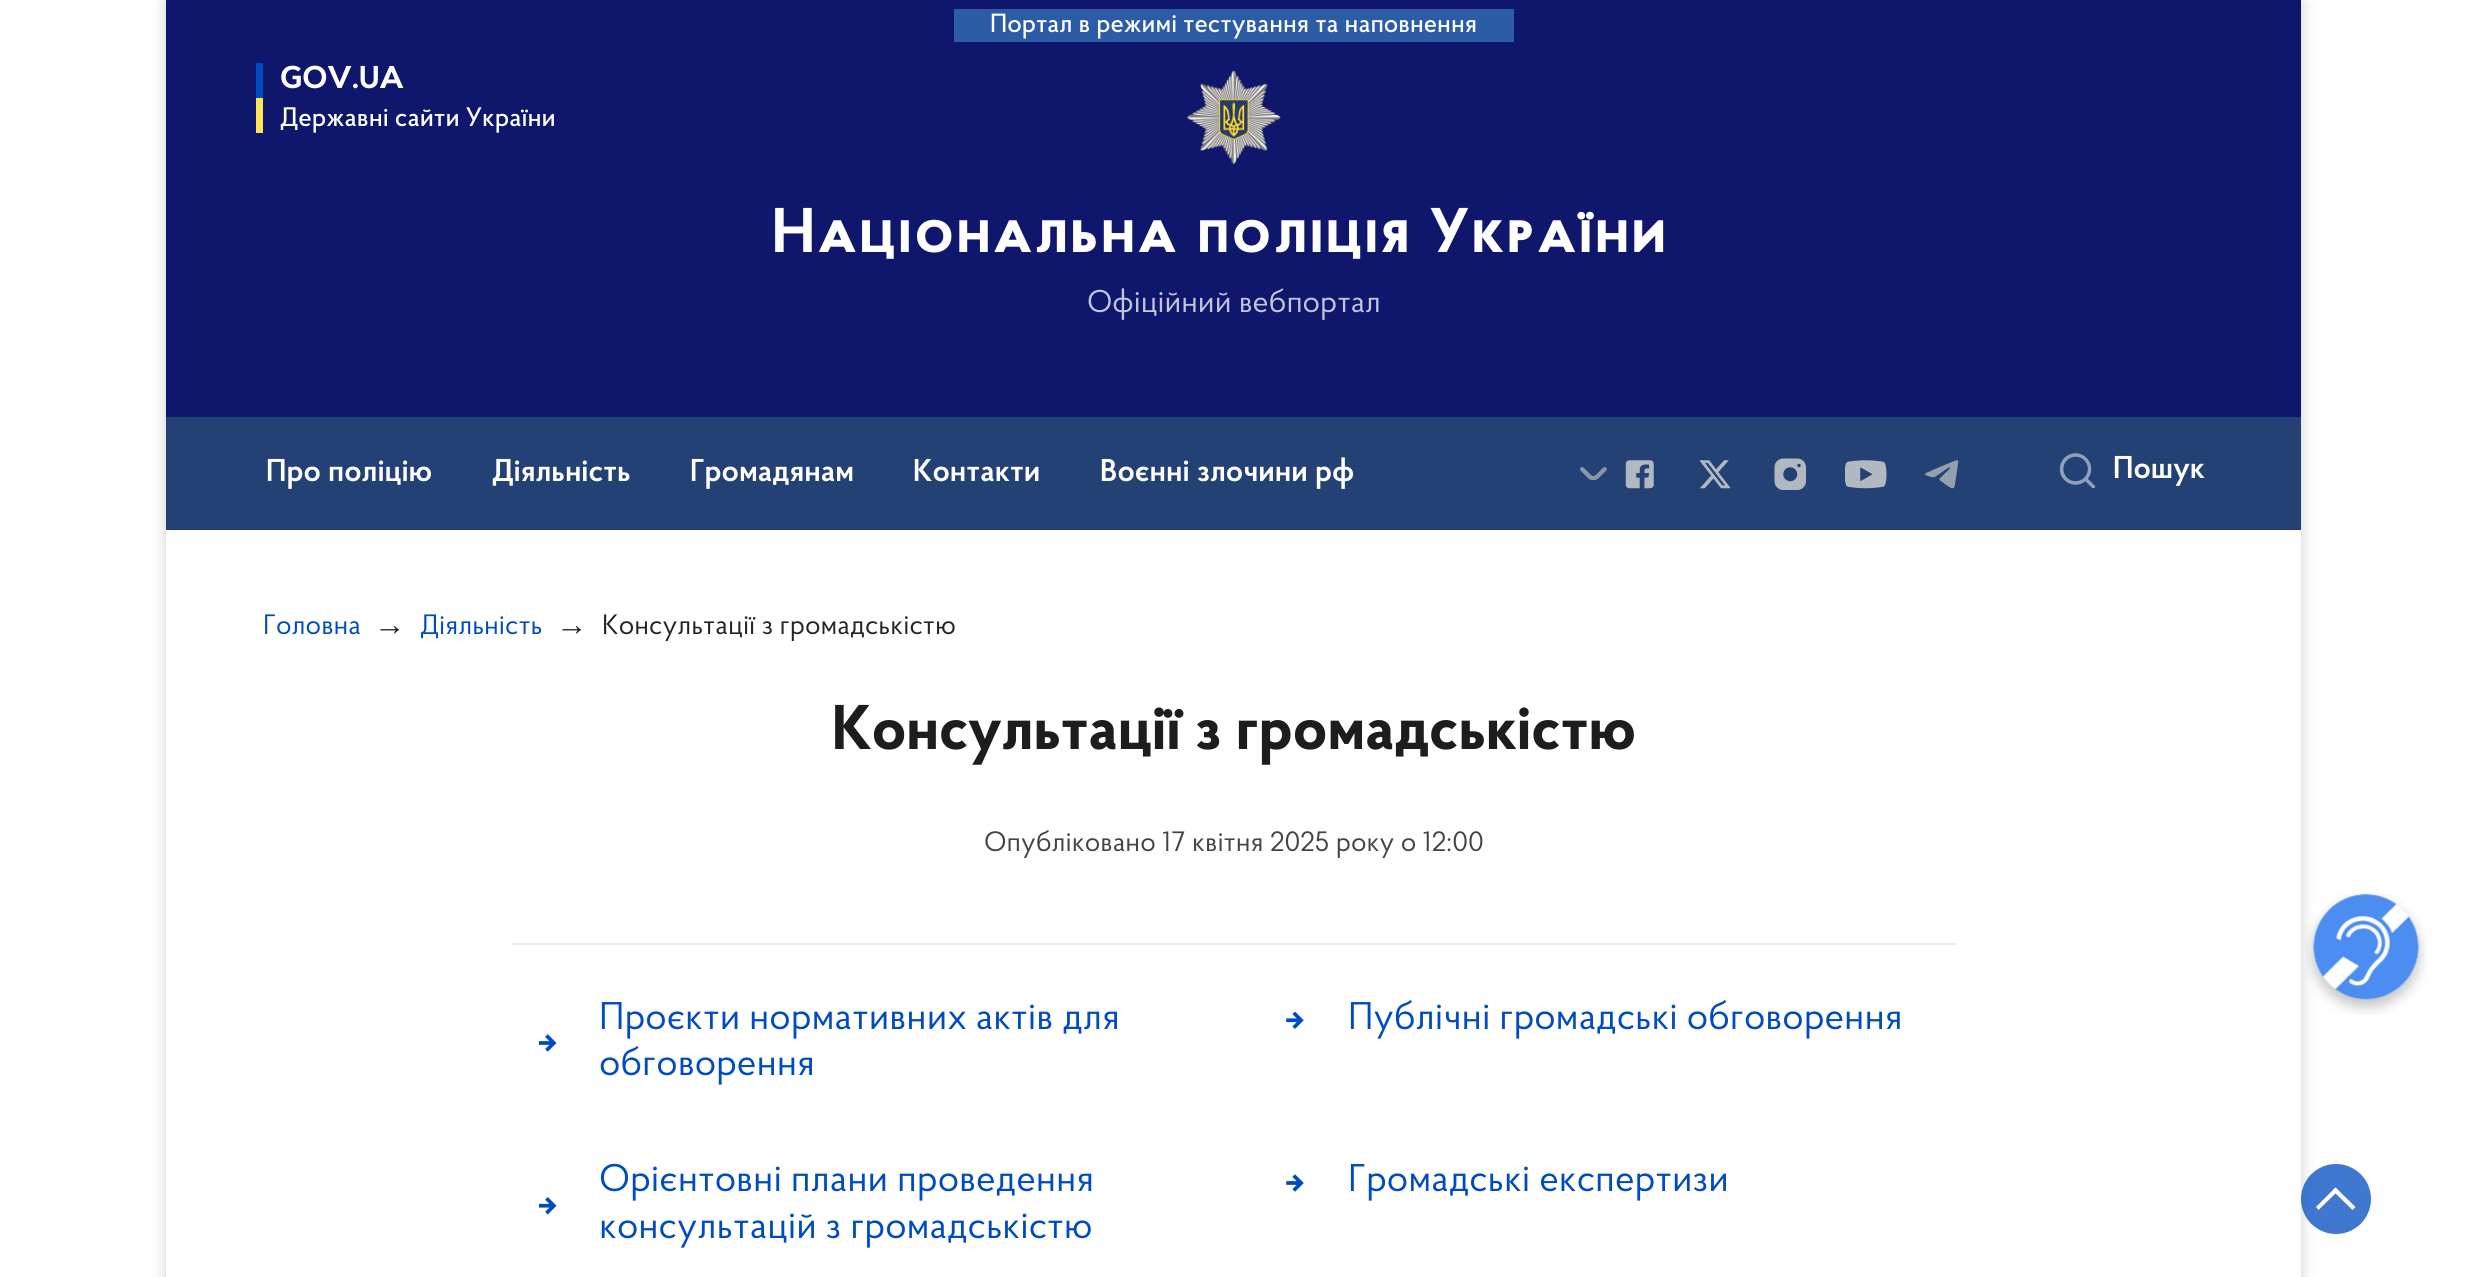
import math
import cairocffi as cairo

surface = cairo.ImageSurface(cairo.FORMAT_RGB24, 2466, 1277)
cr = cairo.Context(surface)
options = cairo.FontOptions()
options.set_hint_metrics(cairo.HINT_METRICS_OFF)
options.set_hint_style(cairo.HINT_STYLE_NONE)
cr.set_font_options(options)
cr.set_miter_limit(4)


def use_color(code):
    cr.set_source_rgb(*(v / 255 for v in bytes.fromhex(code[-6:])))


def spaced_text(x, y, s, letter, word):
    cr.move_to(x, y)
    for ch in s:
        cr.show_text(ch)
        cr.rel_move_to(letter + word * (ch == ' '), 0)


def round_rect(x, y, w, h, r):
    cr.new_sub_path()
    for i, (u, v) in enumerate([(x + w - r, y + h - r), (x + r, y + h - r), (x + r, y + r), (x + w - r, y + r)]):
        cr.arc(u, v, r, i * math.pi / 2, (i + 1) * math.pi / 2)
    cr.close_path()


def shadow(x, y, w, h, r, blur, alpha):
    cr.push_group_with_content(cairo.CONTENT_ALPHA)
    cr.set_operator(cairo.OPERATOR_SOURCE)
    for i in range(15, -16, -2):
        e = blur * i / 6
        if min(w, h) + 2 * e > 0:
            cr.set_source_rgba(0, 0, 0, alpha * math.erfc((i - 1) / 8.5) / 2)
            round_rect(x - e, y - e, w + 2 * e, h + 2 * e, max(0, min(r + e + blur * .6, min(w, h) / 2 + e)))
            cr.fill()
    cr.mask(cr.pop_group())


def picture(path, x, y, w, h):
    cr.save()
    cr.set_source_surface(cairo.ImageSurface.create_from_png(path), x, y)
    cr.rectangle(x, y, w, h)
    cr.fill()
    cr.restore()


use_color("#ffffff")
cr.paint()
use_color("#000000")
shadow(166, 2, 2135, 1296, 0, 7, 0.2)
use_color("#ffffff")
cr.rectangle(166, 530, 2135, 747)
cr.fill()
use_color("#0f176d")
cr.rectangle(166, 0, 2135, 417)
cr.fill()
use_color("#2d5ca6")
cr.rectangle(954, 9, 560, 33)
cr.fill()
cr.select_font_face("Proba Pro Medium")
cr.set_font_size(26.25)
use_color("#ffffff")
cr.move_to(990, 32)
cr.show_text("Портал в режимі тестування та наповнення")
use_color("#004bc1")
cr.rectangle(256, 63, 7, 35)
cr.fill()
use_color("#ffe358")
cr.rectangle(256, 98, 7, 35)
cr.fill()
cr.select_font_face("Proba Pro", cairo.FONT_SLANT_NORMAL, cairo.FONT_WEIGHT_BOLD)
cr.set_font_size(31.5)
use_color("#ffffff")
cr.move_to(280, 88)
cr.show_text("GOV.UA")
cr.select_font_face("Proba Pro Medium")
cr.set_font_size(26.75)
cr.move_to(280, 126)
cr.show_text("Державні сайти України")
picture("img1.png", 1186, 70, 95, 95)
cr.select_font_face("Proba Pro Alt", cairo.FONT_SLANT_NORMAL, cairo.FONT_WEIGHT_BOLD)
cr.set_font_size(63)
spaced_text(772, 252, "Національна поліція України", 3.5, 0)
cr.select_font_face("Proba Pro")
cr.set_font_size(31.5)
use_color("#c3c5db")
cr.move_to(1087, 312)
cr.show_text("Офіційний вебпортал")
use_color("#234174")
cr.rectangle(166, 417, 2135, 113)
cr.fill()
cr.select_font_face("Proba Pro SemiBold")
use_color("#ffffff")
cr.move_to(266, 481)
cr.show_text("Про поліцію")
cr.move_to(492, 481)
cr.show_text("Діяльність")
cr.move_to(690, 481)
cr.show_text("Громадянам")
cr.move_to(913, 481)
cr.show_text("Контакти")
cr.move_to(1100, 481)
cr.show_text("Воєнні злочини рф")
picture("img2.png", 1580, 467, 27, 13)
picture("img3.png", 1625, 460, 29, 29)
picture("img4.png", 1699, 460, 32, 29)
picture("img5.png", 1774, 458, 32, 32)
picture("img6.png", 1845, 460, 42, 29)
picture("img7.png", 1925, 460, 34, 29)
picture("img8.png", 2060, 453, 35, 35)
cr.move_to(2113, 478)
cr.show_text("Пошук")
cr.select_font_face("Proba Pro")
cr.set_font_size(28)
use_color("#004bc1")
cr.move_to(263, 634)
cr.show_text("Головна")
cr.select_font_face("Liberation Sans")
cr.set_font_size(31.5)
use_color("#212529")
cr.move_to(374, 635)
cr.show_text("→")
cr.select_font_face("Proba Pro")
cr.set_font_size(28)
use_color("#004bc1")
cr.move_to(420, 634)
cr.show_text("Діяльність")
cr.select_font_face("Liberation Sans")
cr.set_font_size(31.5)
use_color("#212529")
cr.move_to(556, 635)
cr.show_text("→")
cr.select_font_face("Proba Pro")
cr.set_font_size(28)
cr.move_to(602, 634)
cr.show_text("Консультації з громадськістю")
cr.select_font_face("Proba Pro", cairo.FONT_SLANT_NORMAL, cairo.FONT_WEIGHT_BOLD)
cr.set_font_size(63)
use_color("#1d1d1b")
cr.move_to(832, 749)
cr.show_text("Консультації з громадськістю")
cr.select_font_face("Proba Pro")
cr.set_font_size(28)
use_color("#444444")
cr.move_to(984, 851)
cr.show_text("Опубліковано 17 квітня 2025 року о 12:00")
use_color("#ebebeb")
cr.rectangle(513, 943, 1444, 2)
cr.fill()
cr.set_font_size(38.5)
use_color("#004bc1")
cr.move_to(599, 1029)
cr.show_text("Проєкти нормативних актів для")
picture("img9.png", 539, 1034, 18, 18)
cr.move_to(599, 1075)
cr.show_text("обговорення")
picture("img10.png", 1286, 1012, 18, 17)
cr.move_to(1348, 1029)
cr.show_text("Публічні громадські обговорення")
cr.move_to(599, 1191)
cr.show_text("Орієнтовні плани проведення")
picture("img11.png", 539, 1197, 18, 18)
cr.move_to(599, 1238)
cr.show_text("консультацій з громадськістю")
picture("img12.png", 1286, 1174, 18, 18)
cr.move_to(1348, 1191)
cr.show_text("Громадські експертизи")
picture("img13.png", 2305, 893, 122, 122)
cr.set_source_rgba(0, 0.294, 0.757, 0.75)
cr.arc(2336, 1199, 35, 0, 2 * math.pi)
cr.fill()
use_color("#ffffff")
cr.new_path()
cr.move_to(2332.5, 1190.5)
cr.line_to(2335.5, 1187.5)
cr.line_to(2355.5, 1207)
cr.line_to(2352.5, 1210)
cr.close_path()
cr.fill()
cr.new_path()
cr.move_to(2335.5, 1187.5)
cr.line_to(2338.5, 1190.5)
cr.line_to(2318.5, 1210)
cr.line_to(2316, 1207)
cr.close_path()
cr.fill()
surface.write_to_png("result.png")
